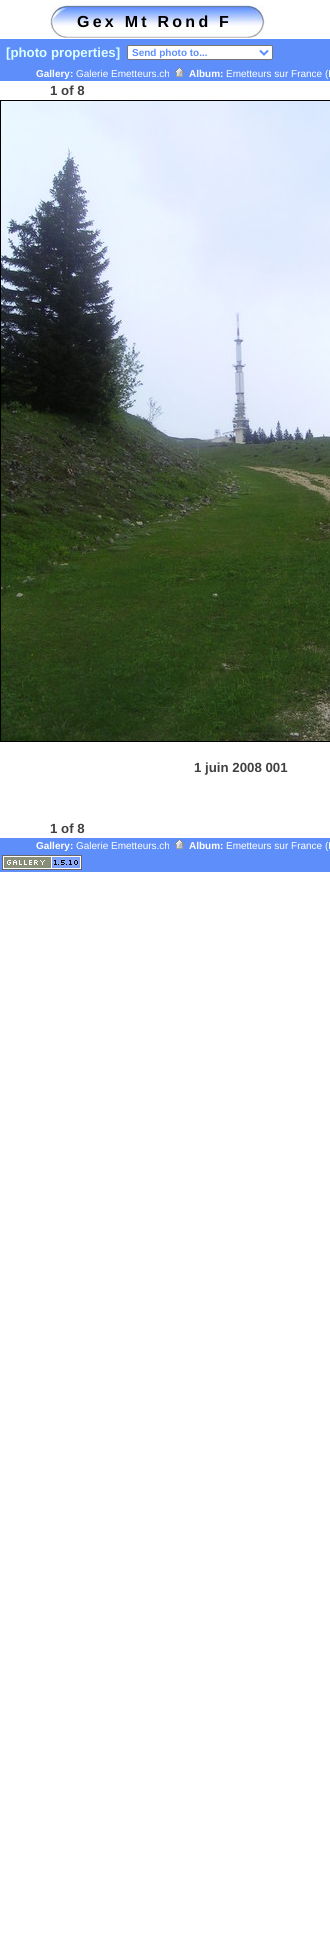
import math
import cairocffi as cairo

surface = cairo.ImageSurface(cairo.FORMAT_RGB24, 330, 1953)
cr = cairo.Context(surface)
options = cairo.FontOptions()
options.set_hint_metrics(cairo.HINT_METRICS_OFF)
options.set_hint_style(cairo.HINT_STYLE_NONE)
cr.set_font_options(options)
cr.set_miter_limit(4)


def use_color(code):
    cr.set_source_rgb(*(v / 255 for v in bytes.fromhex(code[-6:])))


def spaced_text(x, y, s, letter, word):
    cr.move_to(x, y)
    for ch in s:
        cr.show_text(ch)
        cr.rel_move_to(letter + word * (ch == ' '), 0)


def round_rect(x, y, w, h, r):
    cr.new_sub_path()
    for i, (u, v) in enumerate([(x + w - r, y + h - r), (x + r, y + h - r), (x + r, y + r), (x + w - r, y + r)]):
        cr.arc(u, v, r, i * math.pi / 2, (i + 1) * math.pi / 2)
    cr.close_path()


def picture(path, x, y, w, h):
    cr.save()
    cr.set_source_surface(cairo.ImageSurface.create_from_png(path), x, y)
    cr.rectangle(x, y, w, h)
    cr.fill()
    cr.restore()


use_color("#ffffff")
cr.paint()
picture("img1.png", 67, 5, 181, 33)
picture("img2.png", 50, 5, 17, 33)
cr.select_font_face("Liberation Sans", cairo.FONT_SLANT_NORMAL, cairo.FONT_WEIGHT_BOLD)
cr.set_font_size(16)
use_color("#000000")
spaced_text(77, 27, "Gex Mt Rond F", 3.25, 0)
picture("img3.png", 248, 5, 17, 33)
use_color("#5e8efa")
cr.rectangle(0, 39, 330, 42)
cr.fill()
cr.set_font_size(13.25)
use_color("#dbffff")
cr.move_to(6, 57)
cr.show_text("[photo properties]")
use_color("#ffffff")
round_rect(127.5, 45.5, 145, 14, 1.5)
cr.fill_preserve()
use_color("#767676")
cr.set_line_width(1)
cr.stroke()
cr.new_path()
cr.move_to(260, 50.5)
cr.line_to(264, 54.5)
cr.line_to(268, 50.5)
use_color("#5e8efa")
cr.set_line_width(2)
cr.stroke()
cr.set_font_size(10)
cr.move_to(132, 56)
cr.show_text("Send photo to...")
use_color("#ffffff")
cr.move_to(36, 77)
cr.show_text("Gallery:")
cr.select_font_face("Liberation Sans")
cr.move_to(76, 77)
cr.show_text("Galerie Emetteurs.ch")
picture("img4.png", 174, 67, 11, 10)
cr.select_font_face("Liberation Sans", cairo.FONT_SLANT_NORMAL, cairo.FONT_WEIGHT_BOLD)
cr.move_to(189, 77)
cr.show_text("Album:")
cr.select_font_face("Liberation Sans")
cr.move_to(226, 77)
cr.show_text("Emetteurs sur France (F")
cr.select_font_face("Liberation Sans", cairo.FONT_SLANT_NORMAL, cairo.FONT_WEIGHT_BOLD)
cr.set_font_size(13.25)
use_color("#404040")
cr.move_to(50, 95)
cr.show_text("1 of 8")
cr.rectangle(0.5, 100.5, 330, 641)
use_color("#000000")
cr.set_line_width(1)
cr.stroke()
picture("img5.png", 1, 101, 329, 640)
use_color("#404040")
cr.move_to(194, 772)
cr.show_text("1 juin 2008 001")
cr.move_to(50, 833)
cr.show_text("1 of 8")
use_color("#5e8efa")
cr.rectangle(0, 838, 330, 34)
cr.fill()
cr.set_font_size(10)
use_color("#ffffff")
cr.move_to(36, 849)
cr.show_text("Gallery:")
cr.select_font_face("Liberation Sans")
cr.move_to(76, 849)
cr.show_text("Galerie Emetteurs.ch")
picture("img4.png", 174, 839, 11, 10)
cr.select_font_face("Liberation Sans", cairo.FONT_SLANT_NORMAL, cairo.FONT_WEIGHT_BOLD)
cr.move_to(189, 849)
cr.show_text("Album:")
cr.select_font_face("Liberation Sans")
cr.move_to(226, 849)
cr.show_text("Emetteurs sur France (F")
picture("img6.png", 2, 855, 80, 15)
surface.write_to_png("result.png")
